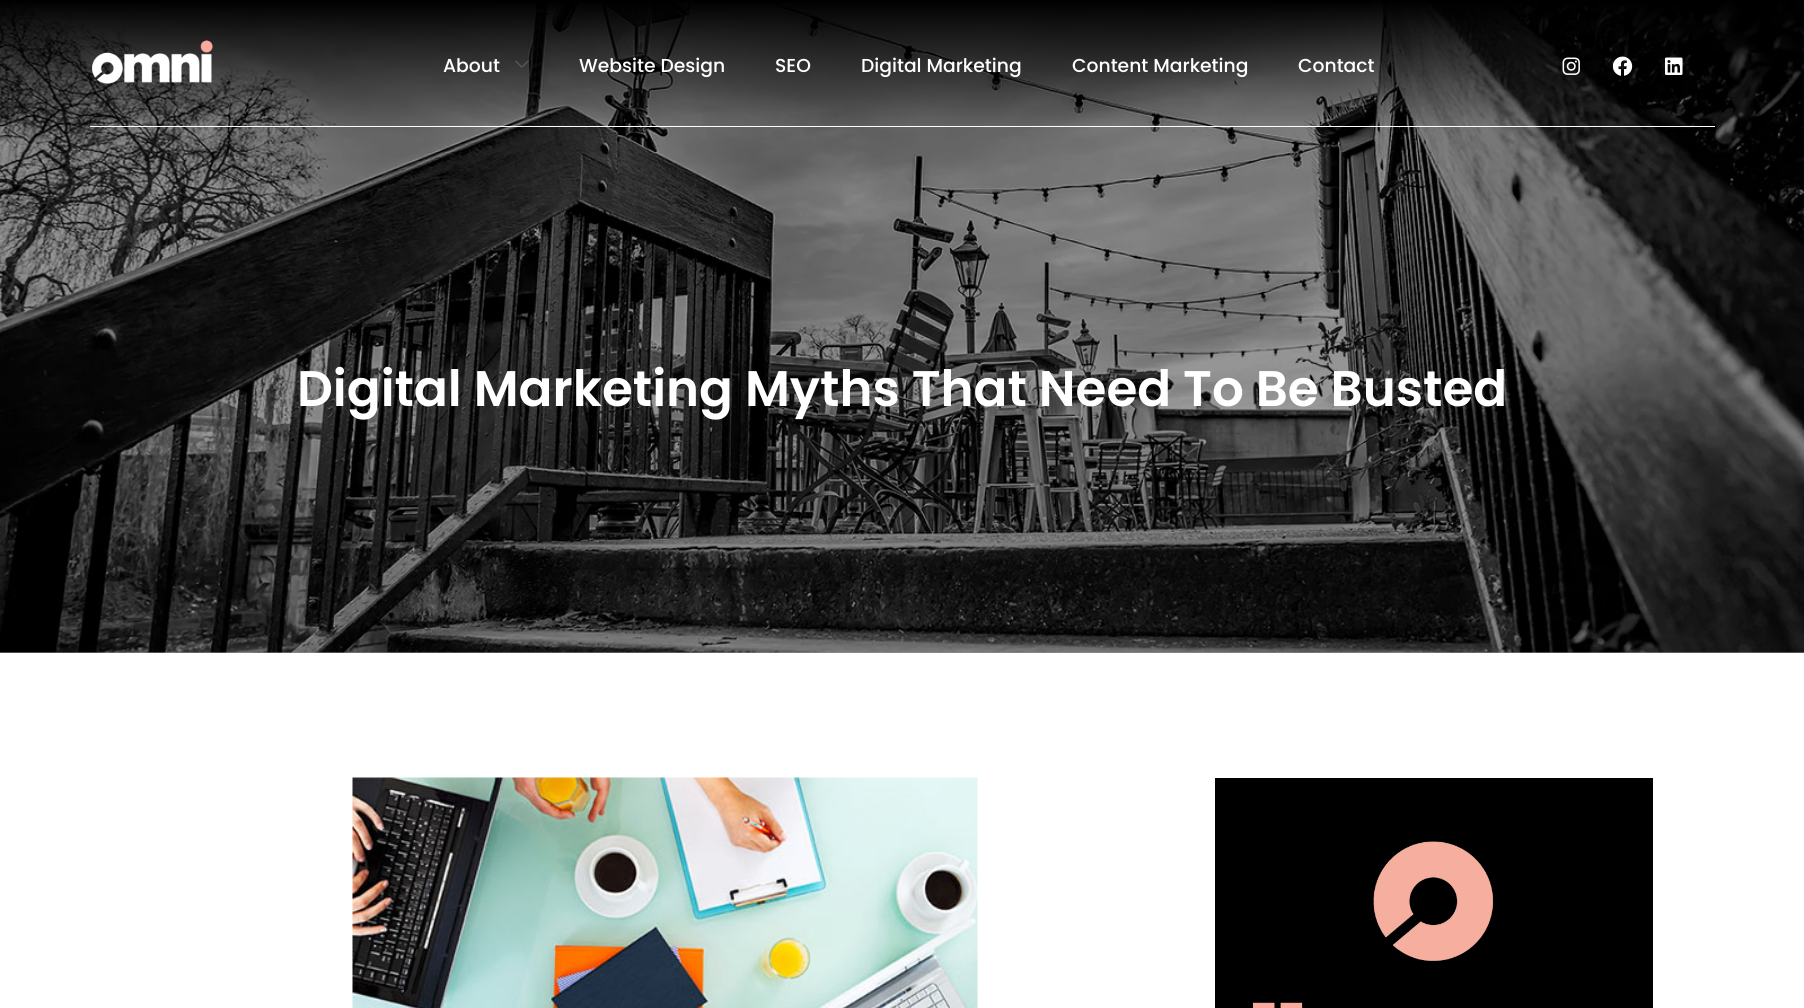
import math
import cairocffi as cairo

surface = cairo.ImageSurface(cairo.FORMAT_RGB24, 1804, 1008)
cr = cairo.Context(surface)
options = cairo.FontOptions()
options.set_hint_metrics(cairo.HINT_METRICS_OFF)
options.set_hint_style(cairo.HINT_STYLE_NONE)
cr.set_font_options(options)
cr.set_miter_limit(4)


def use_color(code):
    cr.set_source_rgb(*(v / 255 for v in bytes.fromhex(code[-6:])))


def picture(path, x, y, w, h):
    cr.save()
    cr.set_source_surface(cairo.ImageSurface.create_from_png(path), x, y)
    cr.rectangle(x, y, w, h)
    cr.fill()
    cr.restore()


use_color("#ffffff")
cr.paint()
use_color("#999999")
cr.rectangle(0, 652, 1804, 1)
cr.fill()
picture("img6.png", 0, 0, 1804, 653)
use_color("#ffffff")
cr.rectangle(90, 126, 1625, 1)
cr.fill()
picture("img1.png", 92, 40, 121, 44)
cr.select_font_face("Poppins Medium")
cr.set_font_size(18.75)
cr.move_to(443, 72)
cr.show_text("About")
picture("img2.png", 515, 60, 14, 8)
cr.move_to(579, 72)
cr.show_text("Website Design")
cr.move_to(775, 72)
cr.show_text("SEO")
cr.move_to(861, 72)
cr.show_text("Digital Marketing")
cr.move_to(1072, 72)
cr.show_text("Content Marketing")
cr.move_to(1298, 72)
cr.show_text("Contact")
picture("img3.png", 1562, 57, 18, 18)
picture("img4.png", 1613, 56, 20, 20)
picture("img5.png", 1665, 57, 18, 18)
cr.select_font_face("Poppins SemiBold")
cr.set_font_size(50)
cr.move_to(297, 406)
cr.show_text("Digital Marketing Myths That Need To Be Busted")
picture("img7.png", 352, 777, 626, 231)
use_color("#000000")
cr.rectangle(1215, 778, 438, 230)
cr.fill()
picture("img8.png", 1373, 841, 121, 120)
picture("img9.png", 1253, 1002, 50, 6)
surface.write_to_png("result.png")
